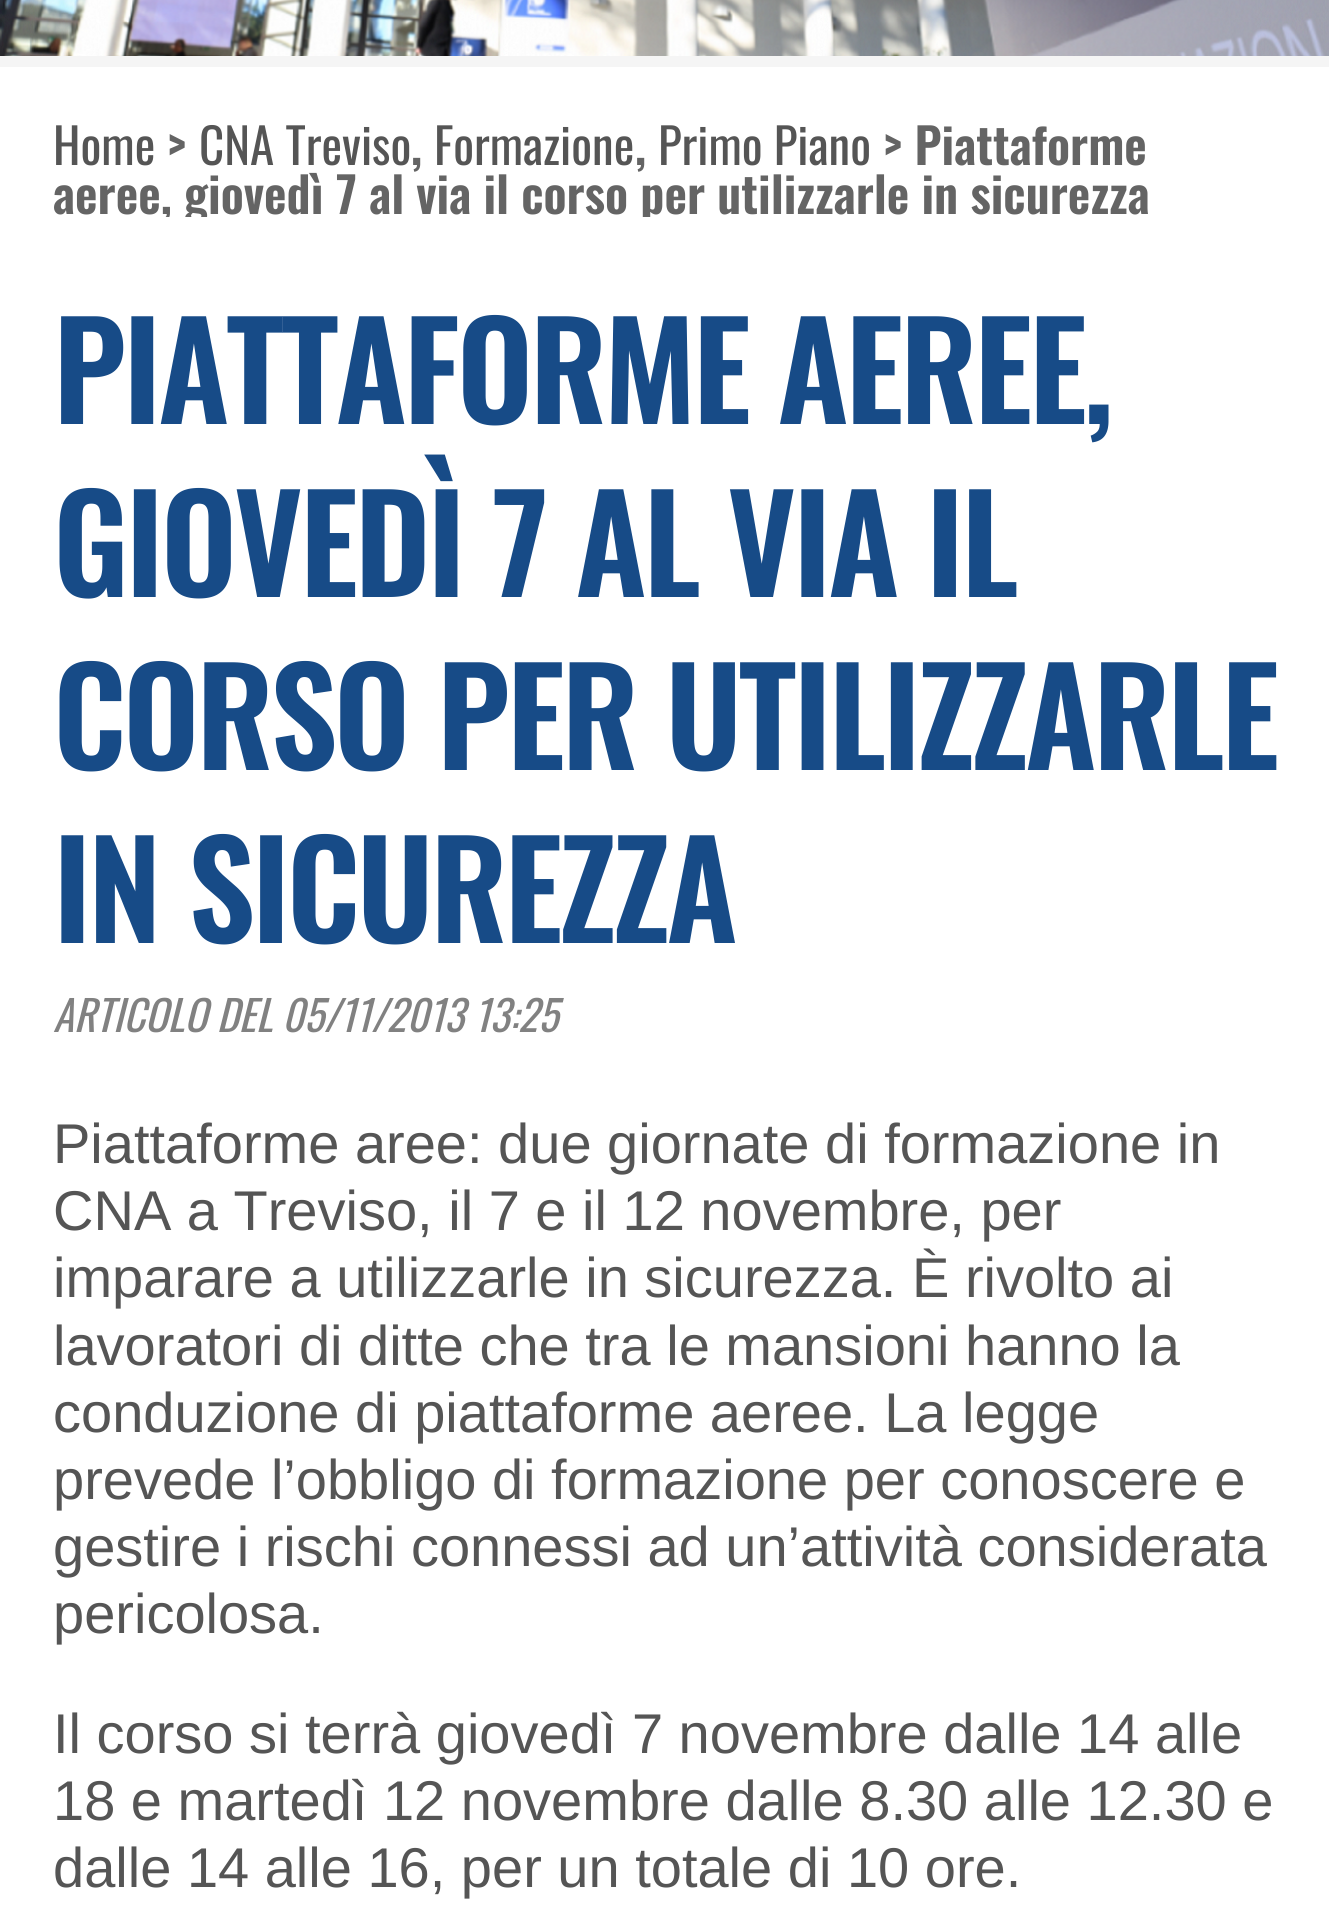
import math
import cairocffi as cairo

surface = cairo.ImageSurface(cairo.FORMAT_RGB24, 1329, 1918)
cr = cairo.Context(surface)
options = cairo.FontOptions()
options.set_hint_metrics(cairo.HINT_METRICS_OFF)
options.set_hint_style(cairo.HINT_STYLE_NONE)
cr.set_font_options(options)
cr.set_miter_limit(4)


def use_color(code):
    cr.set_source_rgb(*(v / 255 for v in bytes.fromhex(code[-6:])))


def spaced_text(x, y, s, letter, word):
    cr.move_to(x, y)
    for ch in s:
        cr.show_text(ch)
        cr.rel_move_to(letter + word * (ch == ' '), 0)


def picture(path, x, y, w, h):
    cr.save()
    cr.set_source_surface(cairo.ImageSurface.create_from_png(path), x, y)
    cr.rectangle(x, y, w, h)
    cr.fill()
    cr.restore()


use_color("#ffffff")
cr.paint()
use_color("#f5f5f5")
cr.rectangle(0, 56, 1329, 11)
cr.fill()
picture("img1.png", 0, 0, 1329, 56)
cr.select_font_face("Oswald")
cr.set_font_size(49)
use_color("#555555")
cr.move_to(53, 165)
cr.show_text("Home")
cr.select_font_face("Oswald SemiBold")
use_color("#646464")
cr.move_to(167, 165)
cr.show_text(">")
cr.select_font_face("Oswald")
use_color("#555555")
cr.move_to(199, 165)
cr.show_text("CNA Treviso")
cr.move_to(434, 165)
cr.show_text("Formazione")
cr.move_to(658, 165)
cr.show_text("Primo Piano")
cr.select_font_face("Oswald SemiBold")
use_color("#646464")
cr.move_to(883, 165)
cr.show_text("> Piattaforme")
cr.move_to(411, 165)
cr.show_text(",")
cr.move_to(635, 165)
cr.show_text(",")
cr.save()
cr.rectangle(53, 119, 1235, 98)
cr.clip()
cr.move_to(53, 214)
cr.show_text("aeree, giovedì 7 al via il corso per utilizzarle in sicurezza")
cr.restore()
cr.set_font_size(133)
use_color("#174b87")
spaced_text(53, 424, "PIATTAFORME AEREE,", -3.5, 0)
spaced_text(53, 597, "GIOVEDÌ 7 AL VIA IL", -3.5, 0)
spaced_text(53, 770, "CORSO PER UTILIZZARLE", -3.5, 0)
spaced_text(53, 943, "IN SICUREZZA", -3.5, 0)
cr.select_font_face("Oswald", cairo.FONT_SLANT_ITALIC)
cr.set_font_size(42)
use_color("#818181")
cr.move_to(53, 1032)
cr.show_text("ARTICOLO DEL 05/11/2013 13:25")
cr.select_font_face("Arimo")
cr.set_font_size(56)
use_color("#555555")
cr.move_to(53, 1163)
cr.show_text("Piattaforme aree: due giornate di formazione in")
cr.move_to(53, 1230)
cr.show_text("CNA a Treviso, il 7 e il 12 novembre, per")
cr.move_to(53, 1297)
cr.show_text("imparare a utilizzarle in sicurezza. È rivolto ai")
cr.move_to(53, 1365)
cr.show_text("lavoratori di ditte che tra le mansioni hanno la")
cr.move_to(53, 1432)
cr.show_text("conduzione di piattaforme aeree. La legge")
cr.move_to(53, 1499)
cr.show_text("prevede l’obbligo di formazione per conoscere e")
cr.move_to(53, 1566)
cr.show_text("gestire i rischi connessi ad un’attività considerata")
cr.move_to(53, 1633)
cr.show_text("pericolosa.")
cr.move_to(53, 1753)
cr.show_text("Il corso si terrà giovedì 7 novembre dalle 14 alle")
cr.move_to(53, 1820)
cr.show_text("18 e martedì 12 novembre dalle 8.30 alle 12.30 e")
cr.move_to(53, 1887)
cr.show_text("dalle 14 alle 16, per un totale di 10 ore.")
surface.write_to_png("result.png")
